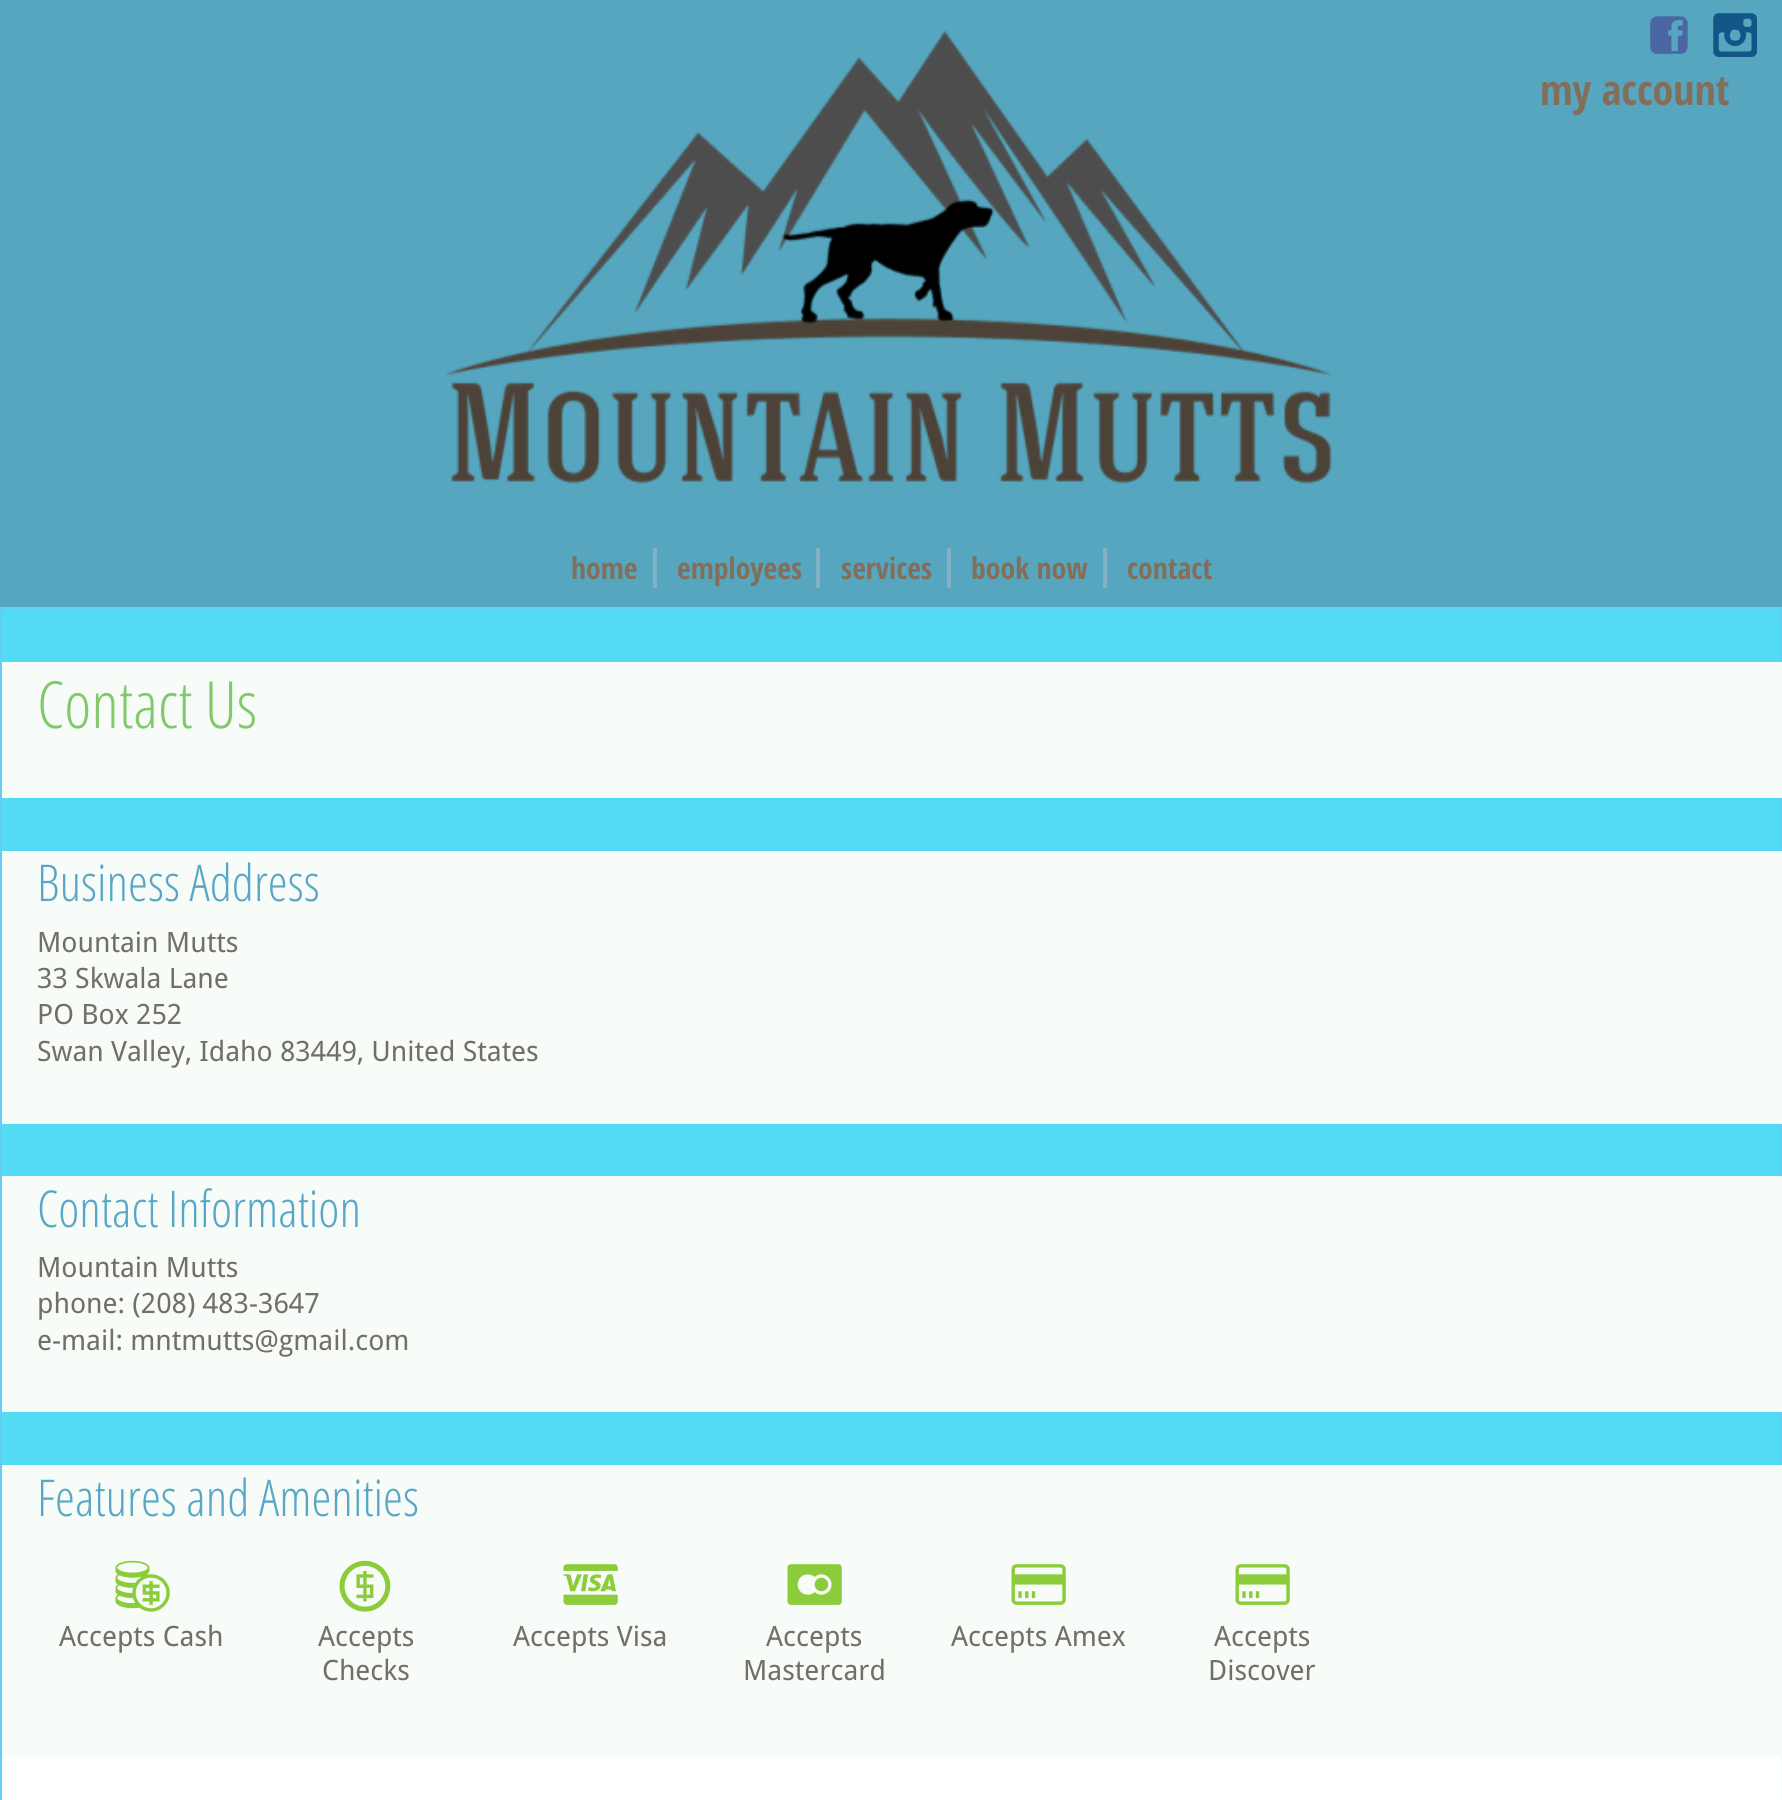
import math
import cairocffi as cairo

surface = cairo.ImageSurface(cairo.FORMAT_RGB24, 1782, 1800)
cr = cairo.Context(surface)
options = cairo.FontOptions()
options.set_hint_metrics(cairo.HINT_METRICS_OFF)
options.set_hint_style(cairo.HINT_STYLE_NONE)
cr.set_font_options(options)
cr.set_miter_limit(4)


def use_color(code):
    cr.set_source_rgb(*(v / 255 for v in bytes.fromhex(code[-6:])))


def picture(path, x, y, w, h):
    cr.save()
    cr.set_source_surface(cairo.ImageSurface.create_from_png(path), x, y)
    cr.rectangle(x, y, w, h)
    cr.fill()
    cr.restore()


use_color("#55a6be")
cr.paint()
picture("img1.png", 446, 30, 886, 454)
picture("img2.png", 1650, 16, 38, 38)
picture("img3.png", 1713, 13, 44, 44)
cr.select_font_face("Open Sans Condensed", cairo.FONT_SLANT_NORMAL, cairo.FONT_WEIGHT_BOLD)
cr.set_font_size(42)
use_color("#846e59")
cr.move_to(1540, 105)
cr.show_text("my account")
use_color("#80b2c3")
cr.rectangle(653, 548, 4, 40)
cr.fill()
cr.set_font_size(29.75)
use_color("#846e59")
cr.move_to(571, 579)
cr.show_text("home")
use_color("#80b2c3")
cr.rectangle(816, 548, 4, 40)
cr.fill()
use_color("#846e59")
cr.move_to(677, 579)
cr.show_text("employees")
use_color("#80b2c3")
cr.rectangle(947, 548, 4, 40)
cr.fill()
use_color("#846e59")
cr.move_to(841, 579)
cr.show_text("services")
use_color("#80b2c3")
cr.rectangle(1103, 548, 4, 40)
cr.fill()
use_color("#846e59")
cr.move_to(971, 579)
cr.show_text("book now")
cr.move_to(1127, 579)
cr.show_text("contact")
use_color("#52dbf3")
cr.rectangle(2, 609, 1779, 856)
cr.fill()
cr.rectangle(1, 608, 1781, 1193)
use_color("#67ccf3")
cr.stroke()
use_color("#f8fcf8")
cr.rectangle(2, 662, 1780, 136)
cr.fill()
cr.select_font_face("Open Sans Light")
cr.set_font_size(65)
use_color("#82c96b")
cr.move_to(37, 728)
cr.show_text("Contact Us")
use_color("#f8fcf8")
cr.rectangle(2, 851, 1780, 273)
cr.fill()
cr.set_font_size(50.75)
use_color("#58a7c6")
cr.move_to(37, 901)
cr.show_text("Business Address")
cr.select_font_face("Droid Sans")
cr.set_font_size(28)
use_color("#736e66")
cr.move_to(37, 952)
cr.show_text("Mountain Mutts")
cr.move_to(37, 988)
cr.show_text("33 Skwala Lane")
cr.move_to(37, 1024)
cr.show_text("PO Box 252")
cr.move_to(37, 1061)
cr.show_text("Swan Valley, Idaho 83449, United States")
use_color("#f8fcf8")
cr.rectangle(2, 1176, 1780, 236)
cr.fill()
cr.select_font_face("Open Sans Light")
cr.set_font_size(50.75)
use_color("#58a7c6")
cr.move_to(37, 1227)
cr.show_text("Contact Information")
cr.select_font_face("Droid Sans")
cr.set_font_size(28)
use_color("#736e66")
cr.move_to(37, 1277)
cr.show_text("Mountain Mutts")
cr.move_to(37, 1313)
cr.show_text("phone: (208) 483-3647")
cr.move_to(37, 1350)
cr.show_text("e-mail: mntmutts@gmail.com")
use_color("#f8fcf8")
cr.rectangle(2, 1465, 1780, 292)
cr.fill()
cr.select_font_face("Open Sans Light")
cr.set_font_size(50.75)
use_color("#58a7c6")
cr.move_to(37, 1516)
cr.show_text("Features and Amenities")
picture("img4.png", 115, 1560, 55, 52)
cr.select_font_face("Droid Sans")
cr.set_font_size(28)
use_color("#736e66")
cr.move_to(59, 1646)
cr.show_text("Accepts Cash")
picture("img5.png", 339, 1560, 52, 52)
cr.move_to(318, 1646)
cr.show_text("Accepts")
cr.move_to(322, 1680)
cr.show_text("Checks")
picture("img6.png", 563, 1564, 55, 41)
cr.move_to(513, 1646)
cr.show_text("Accepts Visa")
picture("img7.png", 787, 1564, 55, 41)
cr.move_to(766, 1646)
cr.show_text("Accepts")
cr.move_to(743, 1680)
cr.show_text("Mastercard")
picture("img8.png", 1011, 1564, 55, 41)
cr.move_to(951, 1646)
cr.show_text("Accepts Amex")
picture("img8.png", 1235, 1564, 55, 41)
cr.move_to(1214, 1646)
cr.show_text("Accepts")
cr.move_to(1208, 1680)
cr.show_text("Discover")
use_color("#f8fcf8")
cr.rectangle(1781, 1757, 1, 43)
cr.fill()
picture("img9.png", 1, 1757, 1780, 43)
surface.write_to_png("result.png")
